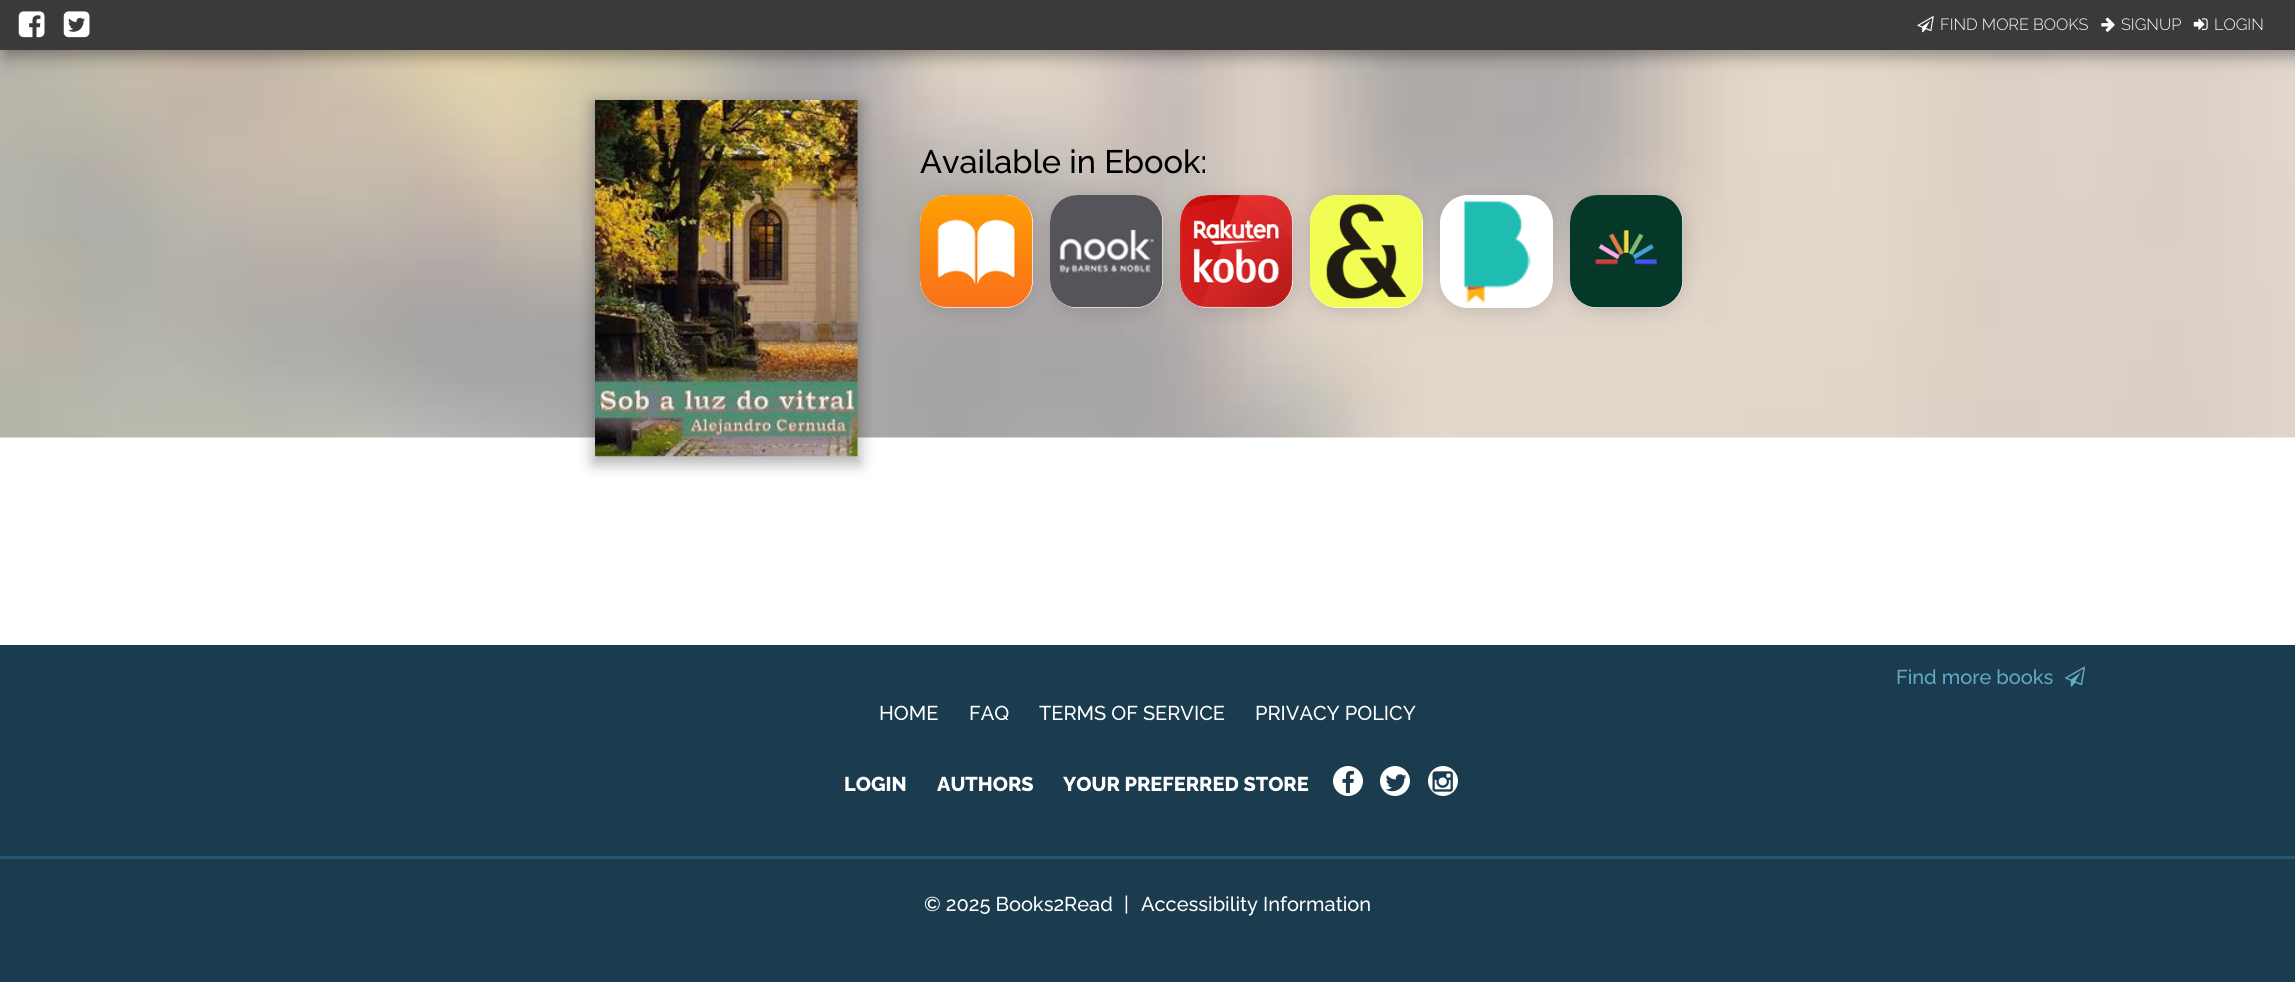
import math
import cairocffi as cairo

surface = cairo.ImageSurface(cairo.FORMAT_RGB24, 2295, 982)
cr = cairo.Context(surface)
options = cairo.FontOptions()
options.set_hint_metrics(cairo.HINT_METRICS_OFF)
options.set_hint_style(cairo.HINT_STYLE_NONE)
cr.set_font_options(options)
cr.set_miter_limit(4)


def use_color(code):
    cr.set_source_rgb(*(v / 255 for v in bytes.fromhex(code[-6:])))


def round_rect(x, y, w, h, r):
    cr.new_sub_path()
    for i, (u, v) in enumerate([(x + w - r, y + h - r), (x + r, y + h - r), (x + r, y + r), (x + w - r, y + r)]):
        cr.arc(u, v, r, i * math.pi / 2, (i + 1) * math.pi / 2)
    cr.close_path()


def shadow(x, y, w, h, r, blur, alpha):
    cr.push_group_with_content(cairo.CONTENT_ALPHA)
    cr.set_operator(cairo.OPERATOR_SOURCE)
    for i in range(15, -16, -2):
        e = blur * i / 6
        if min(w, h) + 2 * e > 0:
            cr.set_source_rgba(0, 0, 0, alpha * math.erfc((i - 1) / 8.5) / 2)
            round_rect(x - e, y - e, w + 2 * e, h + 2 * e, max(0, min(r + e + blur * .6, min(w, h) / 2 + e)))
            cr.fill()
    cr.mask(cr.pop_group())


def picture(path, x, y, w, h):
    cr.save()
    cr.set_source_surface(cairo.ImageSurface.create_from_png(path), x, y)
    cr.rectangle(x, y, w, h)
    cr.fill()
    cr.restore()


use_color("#ffffff")
cr.paint()
picture("img1.png", 0, 50, 2295, 388)
use_color("#000000")
shadow(5, 5, 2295, 50, 0, 9, 0.4)
use_color("#3a3a3a")
cr.rectangle(0, 0, 2295, 50)
cr.fill()
picture("img2.png", 18, 11, 27, 27)
picture("img3.png", 63, 11, 27, 27)
picture("img4.png", 1917, 16, 17, 17)
cr.select_font_face("Raleway Light")
cr.set_font_size(16.25)
use_color("#ffffff")
cr.move_to(1940, 30)
cr.show_text("FIND MORE BOOKS")
picture("img5.png", 2101, 17, 14, 15)
cr.move_to(2121, 30)
cr.show_text("SIGNUP")
picture("img6.png", 2193, 18, 15, 12)
cr.move_to(2214, 30)
cr.show_text("LOGIN")
use_color("#000000")
shadow(593, 103, 267, 361, 0, 7.5, 0.3)
picture("img7.png", 595, 100, 263, 357)
shadow(918, 195, 117, 118, 30, 7.5, 0.1)
use_color("#ffffff")
round_rect(920, 195, 113, 113, 28)
cr.fill()
picture("img8.png", 920, 195, 113, 113)
use_color("#000000")
shadow(1048, 195, 117, 118, 30, 7.5, 0.1)
use_color("#ffffff")
round_rect(1050, 195, 113, 113, 28)
cr.fill()
picture("img9.png", 1050, 195, 113, 113)
use_color("#000000")
shadow(1178, 195, 117, 118, 30, 7.5, 0.1)
cr.select_font_face("Raleway Medium")
cr.set_font_size(32.5)
use_color("#000000")
cr.move_to(920, 173)
cr.show_text("Available in Ebook:")
use_color("#ffffff")
round_rect(1180, 195, 113, 113, 28)
cr.fill()
picture("img10.png", 1180, 195, 113, 113)
use_color("#000000")
shadow(1308, 195, 117, 118, 30, 7.5, 0.1)
use_color("#ffffff")
round_rect(1310, 195, 113, 113, 28)
cr.fill()
picture("img11.png", 1310, 195, 113, 113)
use_color("#000000")
shadow(1438, 195, 117, 118, 30, 7.5, 0.1)
use_color("#ffffff")
round_rect(1440, 195, 113, 113, 28)
cr.fill()
use_color("#000000")
shadow(1568, 195, 117, 118, 30, 7.5, 0.1)
use_color("#ffffff")
round_rect(1570, 195, 113, 113, 28)
cr.fill()
picture("img12.png", 1463, 201, 68, 102)
picture("img13.png", 1570, 195, 113, 113)
use_color("#1b3b4f")
cr.rectangle(0, 645, 2295, 337)
cr.fill()
cr.set_font_size(20)
use_color("#63aac5")
cr.move_to(1896, 684)
cr.show_text("Find more books")
picture("img14.png", 2065, 666, 20, 21)
use_color("#ffffff")
cr.move_to(879, 720)
cr.show_text("HOME")
cr.move_to(969, 720)
cr.show_text("FAQ")
cr.move_to(1039, 720)
cr.show_text("TERMS OF SERVICE")
cr.move_to(1255, 720)
cr.show_text("PRIVACY POLICY")
cr.select_font_face("Raleway ExtraBold")
cr.move_to(844, 791)
cr.show_text("LOGIN")
cr.move_to(937, 791)
cr.show_text("AUTHORS")
cr.move_to(1063, 791)
cr.show_text("YOUR PREFERRED STORE")
cr.new_path()
cr.arc(1348, 781, 15, 0, 2 * math.pi)
cr.fill()
picture("img15.png", 1342, 770, 12, 23)
cr.arc(1395, 781, 15, 0, 2 * math.pi)
cr.fill()
picture("img16.png", 1385, 774, 22, 18)
cr.arc(1443, 781, 15, 0, 2 * math.pi)
cr.fill()
picture("img17.png", 1432, 771, 21, 21)
use_color("#285775")
cr.rectangle(0, 856, 2295, 3)
cr.fill()
cr.select_font_face("Raleway Medium")
use_color("#ffffff")
cr.move_to(924, 911)
cr.show_text("© 2025 Books2Read")
cr.move_to(1124, 911)
cr.show_text("|")
cr.move_to(1141, 911)
cr.show_text("Accessibility Information")
surface.write_to_png("result.png")
